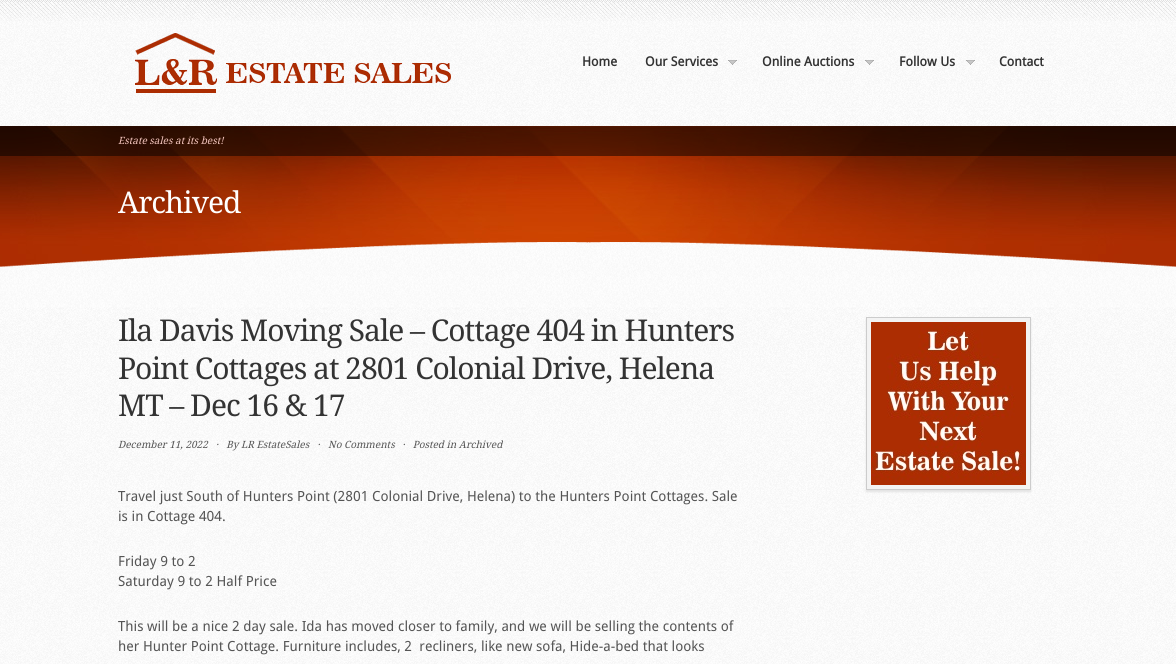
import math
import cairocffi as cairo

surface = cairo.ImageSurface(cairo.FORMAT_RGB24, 1176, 664)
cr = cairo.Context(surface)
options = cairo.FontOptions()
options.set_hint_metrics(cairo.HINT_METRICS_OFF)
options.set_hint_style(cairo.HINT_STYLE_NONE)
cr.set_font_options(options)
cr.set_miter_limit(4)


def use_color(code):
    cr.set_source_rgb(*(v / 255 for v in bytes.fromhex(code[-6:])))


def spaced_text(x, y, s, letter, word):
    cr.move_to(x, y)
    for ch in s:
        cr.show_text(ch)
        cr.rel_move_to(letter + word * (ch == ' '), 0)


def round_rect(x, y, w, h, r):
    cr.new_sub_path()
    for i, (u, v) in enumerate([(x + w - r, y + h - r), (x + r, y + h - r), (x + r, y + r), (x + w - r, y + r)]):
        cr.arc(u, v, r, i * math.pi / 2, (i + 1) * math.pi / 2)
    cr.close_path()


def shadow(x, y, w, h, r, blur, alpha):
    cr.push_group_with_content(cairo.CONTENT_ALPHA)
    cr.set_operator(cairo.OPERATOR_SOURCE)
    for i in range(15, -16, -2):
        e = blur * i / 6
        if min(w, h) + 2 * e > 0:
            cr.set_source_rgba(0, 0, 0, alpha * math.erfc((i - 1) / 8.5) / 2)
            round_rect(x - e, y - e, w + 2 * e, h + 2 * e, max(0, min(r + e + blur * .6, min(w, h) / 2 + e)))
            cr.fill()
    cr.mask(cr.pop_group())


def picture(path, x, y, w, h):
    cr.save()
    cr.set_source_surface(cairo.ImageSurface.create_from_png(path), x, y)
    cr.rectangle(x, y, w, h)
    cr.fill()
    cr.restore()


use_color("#ffffff")
cr.paint()
picture("img1.png", 0, 0, 1176, 664)
picture("img2.png", 0, 0, 1176, 21)
picture("img3.png", 135, 33, 316, 60)
cr.select_font_face("Droid Sans", cairo.FONT_SLANT_NORMAL, cairo.FONT_WEIGHT_BOLD)
cr.set_font_size(13)
use_color("#333333")
cr.move_to(582, 66)
cr.show_text("Home")
cr.move_to(645, 66)
cr.show_text("Our Services")
picture("img4.png", 728, 60, 9, 5)
cr.move_to(762, 66)
cr.show_text("Online Auctions")
picture("img5.png", 865, 60, 9, 5)
cr.move_to(899, 66)
cr.show_text("Follow Us")
picture("img6.png", 966, 60, 9, 5)
cr.move_to(999, 66)
cr.show_text("Contact")
picture("img7.png", 0, 126, 1176, 141)
picture("img8.png", 1, 0, 1174, 2)
cr.set_source_rgba(0, 0, 0, 0.5)
cr.rectangle(0, 126, 1176, 30)
cr.fill()
cr.select_font_face("Droid Serif", cairo.FONT_SLANT_ITALIC)
cr.set_font_size(10)
use_color("#f3c4bc")
cr.move_to(118, 144)
cr.show_text("Estate sales at its best!")
cr.select_font_face("Droid Serif")
cr.set_font_size(30)
use_color("#ffffff")
spaced_text(118, 213, "Archived", -1, 0)
picture("img9.png", 0, 242, 1176, 65)
use_color("#333333")
spaced_text(118, 341, "Ila Davis Moving Sale – Cottage 404 in Hunters", -1, 0)
spaced_text(118, 379, "Point Cottages at 2801 Colonial Drive, Helena", -1, 0)
spaced_text(118, 416, "MT – Dec 16 & 17", -1, 0)
cr.select_font_face("Droid Serif", cairo.FONT_SLANT_ITALIC)
cr.set_font_size(10)
use_color("#555555")
cr.move_to(118, 448)
cr.show_text("December 11, 2022   ·   By LR EstateSales")
cr.move_to(317, 448)
cr.show_text("·")
cr.move_to(328, 448)
cr.show_text("No Comments")
cr.move_to(402, 448)
cr.show_text("·   Posted in Archived")
cr.select_font_face("Droid Sans")
cr.set_font_size(14)
cr.move_to(118, 501)
cr.show_text("Travel just South of Hunters Point (2801 Colonial Drive, Helena) to the Hunters Point Cottages. Sale")
cr.move_to(118, 521)
cr.show_text("is in Cottage 404.")
cr.move_to(118, 566)
cr.show_text("Friday 9 to 2")
cr.move_to(118, 586)
cr.show_text("Saturday 9 to 2 Half Price")
cr.move_to(118, 631)
cr.show_text("This will be a nice 2 day sale. Ida has moved closer to family, and we will be selling the contents of")
cr.move_to(118, 651)
cr.show_text("her Hunter Point Cottage. Furniture includes, 2  recliners, like new sofa, Hide-a-bed that looks")
use_color("#e3e3e3")
shadow(866, 319, 165, 173, 0, 1, 1)
use_color("#f3f3f3")
cr.rectangle(866.5, 317.5, 164, 172)
cr.fill_preserve()
use_color("#cccccc")
cr.set_line_width(1)
cr.stroke()
picture("img10.png", 871, 322, 155, 163)
surface.write_to_png("result.png")
